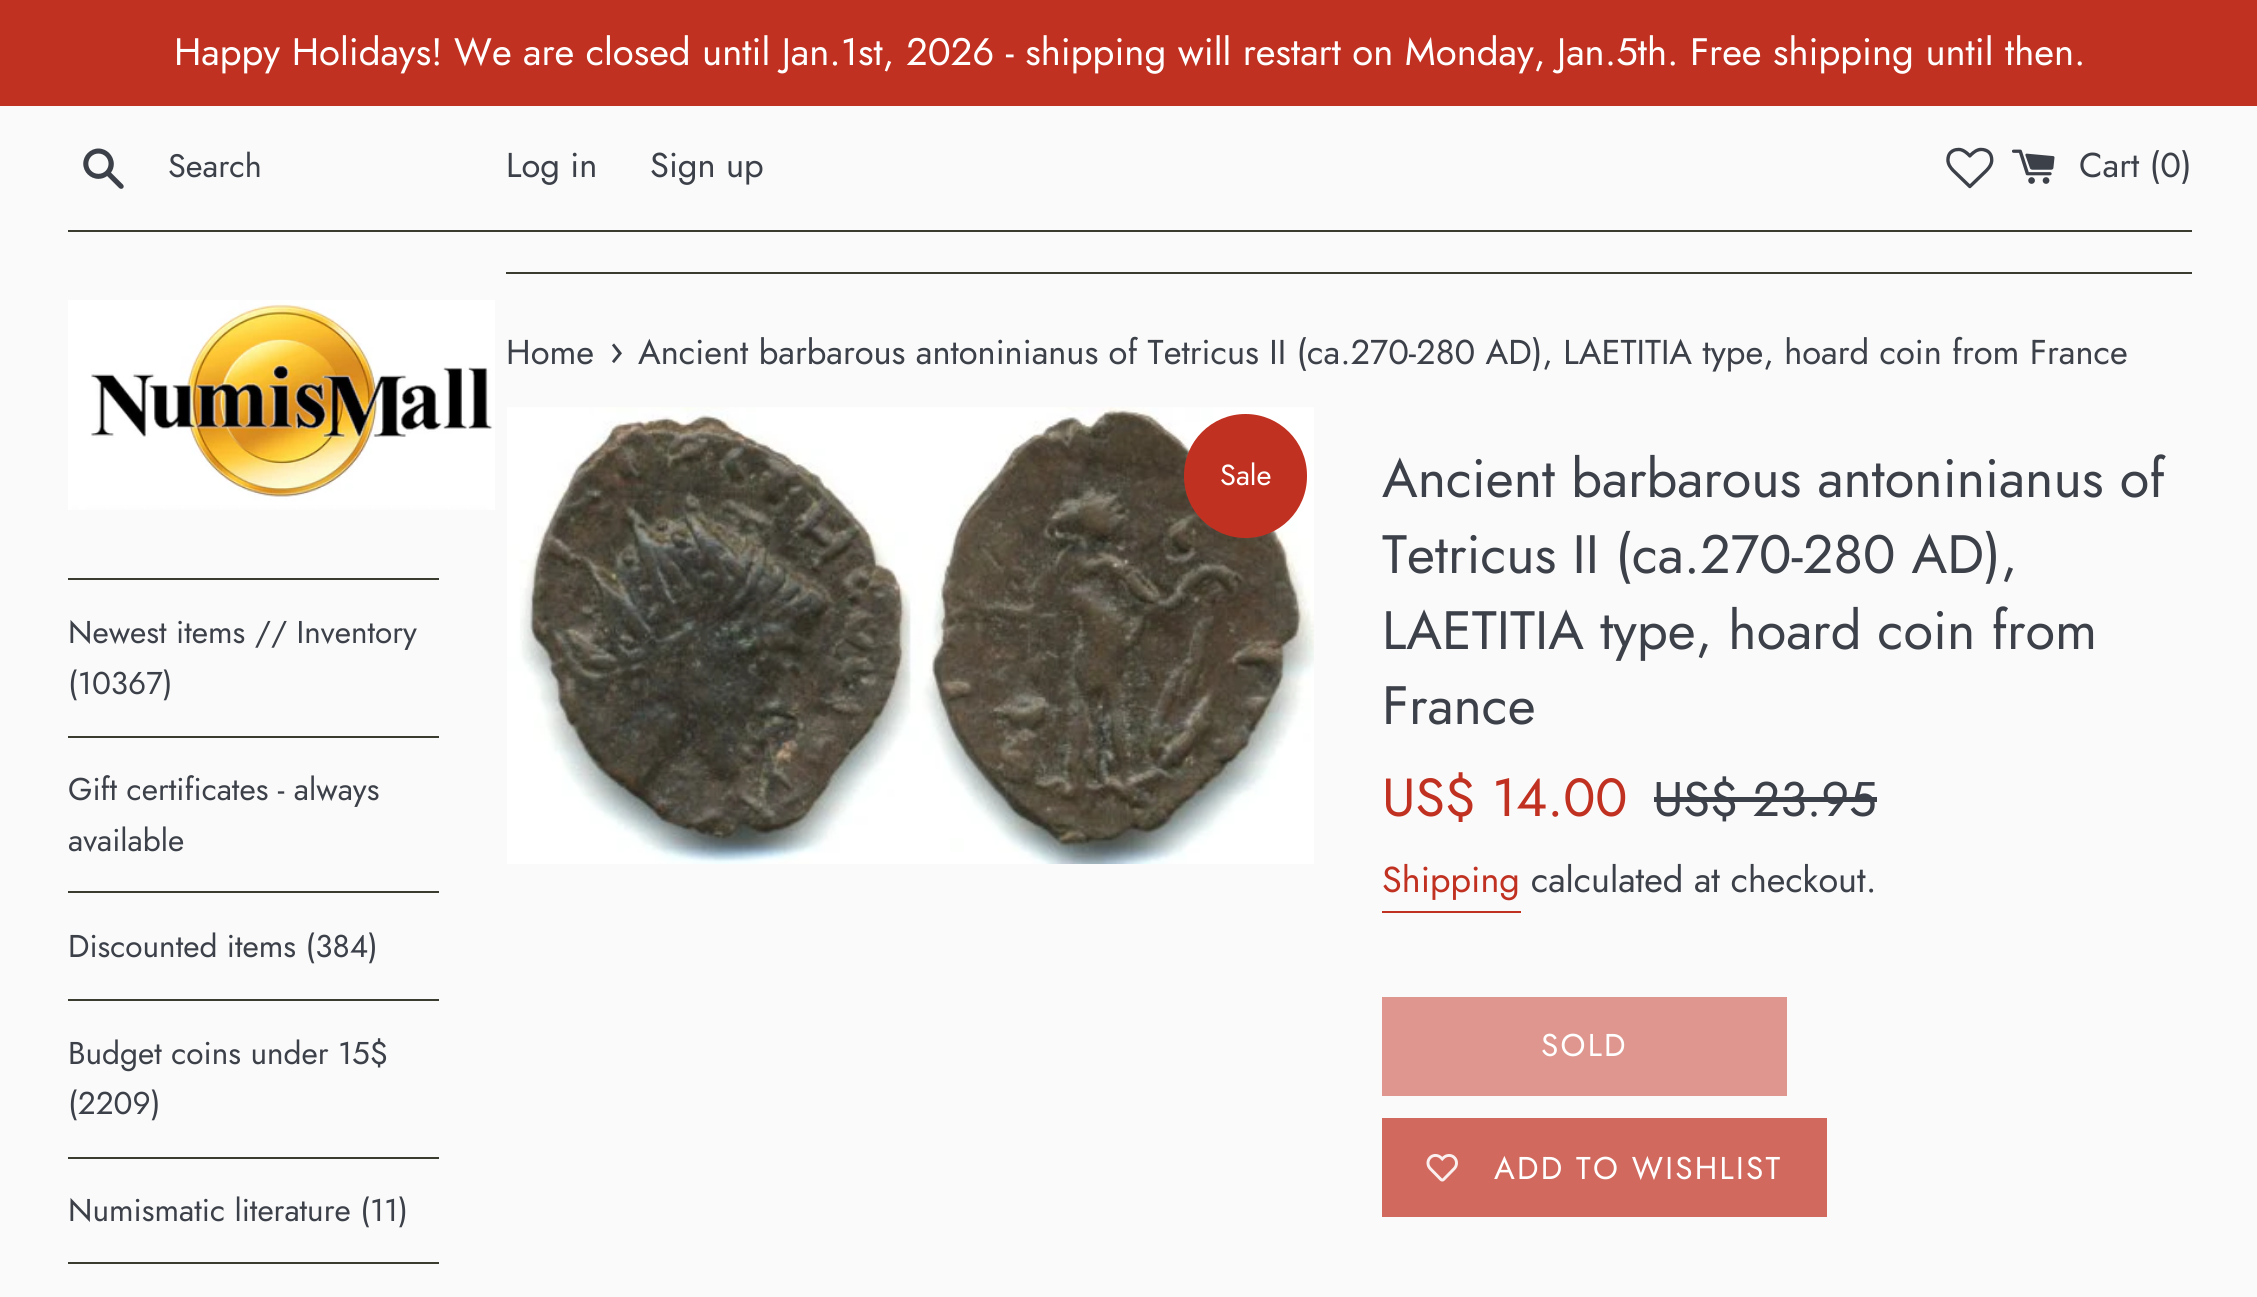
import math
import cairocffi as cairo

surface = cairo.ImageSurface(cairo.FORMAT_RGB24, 2257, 1297)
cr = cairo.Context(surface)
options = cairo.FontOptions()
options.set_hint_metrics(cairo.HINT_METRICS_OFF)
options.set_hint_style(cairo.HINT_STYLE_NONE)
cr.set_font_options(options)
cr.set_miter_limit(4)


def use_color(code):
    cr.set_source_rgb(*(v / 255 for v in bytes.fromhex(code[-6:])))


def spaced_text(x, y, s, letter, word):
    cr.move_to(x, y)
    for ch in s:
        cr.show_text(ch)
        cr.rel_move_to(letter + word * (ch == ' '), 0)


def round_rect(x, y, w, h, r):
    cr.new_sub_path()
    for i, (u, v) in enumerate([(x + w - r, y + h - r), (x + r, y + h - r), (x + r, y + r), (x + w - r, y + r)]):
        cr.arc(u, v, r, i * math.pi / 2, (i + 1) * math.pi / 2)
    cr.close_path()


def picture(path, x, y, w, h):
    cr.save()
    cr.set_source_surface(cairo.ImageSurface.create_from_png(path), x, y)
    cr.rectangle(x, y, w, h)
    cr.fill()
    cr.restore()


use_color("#fafafa")
cr.paint()
use_color("#c13121")
cr.rectangle(0, 0, 2257, 106)
cr.fill()
cr.select_font_face("Jost")
cr.set_font_size(38.25)
use_color("#ffffff")
cr.move_to(174, 65)
cr.show_text("Happy Holidays! We are closed until Jan.1st, 2026 - shipping will restart on Monday, Jan.5th. Free shipping until then.")
picture("img1.png", 83, 148, 41, 41)
cr.set_font_size(32.5)
use_color("#3c4049")
cr.move_to(168, 177)
cr.show_text("Search")
cr.set_font_size(34.45)
cr.move_to(506, 177)
cr.show_text("Log in")
cr.move_to(650, 177)
cr.show_text("Sign up")
picture("img2.png", 1946, 147, 48, 42)
picture("img3.png", 2012, 149, 43, 35)
cr.move_to(2079, 177)
cr.show_text("Cart (0)")
use_color("#393c2e")
cr.rectangle(68, 230, 2124, 2)
cr.fill()
picture("img4.png", 68, 300, 427, 210)
cr.rectangle(68, 578, 371, 2)
cr.fill()
cr.rectangle(68, 736, 371, 2)
cr.fill()
cr.set_font_size(31.5)
use_color("#3c4049")
cr.move_to(68, 643)
cr.show_text("Newest items // Inventory")
cr.move_to(68, 694)
cr.show_text("(10367)")
use_color("#393c2e")
cr.rectangle(68, 891, 371, 2)
cr.fill()
use_color("#3c4049")
cr.move_to(68, 800)
cr.show_text("Gift certificates - always")
cr.move_to(68, 851)
cr.show_text("available")
use_color("#393c2e")
cr.rectangle(68, 999, 371, 2)
cr.fill()
use_color("#3c4049")
cr.move_to(68, 957)
cr.show_text("Discounted items (384)")
use_color("#393c2e")
cr.rectangle(68, 1157, 371, 2)
cr.fill()
use_color("#3c4049")
cr.move_to(68, 1064)
cr.show_text("Budget coins under 15$")
cr.move_to(68, 1114)
cr.show_text("(2209)")
use_color("#393c2e")
cr.rectangle(68, 1262, 371, 2)
cr.fill()
use_color("#3c4049")
cr.move_to(68, 1221)
cr.show_text("Numismatic literature (11)")
use_color("#393c2e")
cr.rectangle(506, 272, 1686, 2)
cr.fill()
cr.set_font_size(34.45)
use_color("#3c4049")
cr.move_to(506, 364)
cr.show_text("Home")
cr.set_font_size(42)
cr.move_to(609, 364)
cr.show_text("›")
cr.set_font_size(34.45)
cr.move_to(638, 364)
cr.show_text("Ancient barbarous antoninianus of Tetricus II (ca.270-280 AD), LAETITIA type, hoard coin from France")
picture("img5.png", 507, 407, 807, 457)
use_color("#c13121")
round_rect(1184, 414, 123, 124, 61.5)
cr.fill()
cr.set_font_size(29)
use_color("#ffffff")
cr.move_to(1220, 485)
cr.show_text("Sale")
cr.set_font_size(54)
use_color("#3c4049")
cr.move_to(1382, 497)
cr.show_text("Ancient barbarous antoninianus of")
cr.move_to(1382, 573)
cr.show_text("Tetricus II (ca.270-280 AD),")
cr.move_to(1382, 649)
cr.show_text("LAETITIA type, hoard coin from")
cr.move_to(1382, 724)
cr.show_text("France")
cr.set_font_size(53.5)
use_color("#c13121")
cr.move_to(1382, 816)
cr.show_text("US$ 14.00")
cr.set_font_size(48.5)
use_color("#3c4049")
cr.move_to(1653, 816)
cr.show_text("US$ 23.95")
cr.rectangle(1654, 797, 223, 5)
cr.fill()
cr.set_font_size(36)
use_color("#c13121")
cr.move_to(1382, 892)
cr.show_text("Shipping")
cr.rectangle(1382, 911, 139, 2)
cr.fill()
use_color("#3c4049")
cr.move_to(1531, 892)
cr.show_text("calculated at checkout.")
use_color("#de968e")
cr.rectangle(1382, 997, 405, 99)
cr.fill()
cr.set_font_size(31.5)
use_color("#ffffff")
spaced_text(1541, 1056, "SOLD", 2.25, 0)
use_color("#d1695e")
cr.rectangle(1382, 1118, 445, 99)
cr.fill()
picture("img6.png", 1426, 1154, 32, 28)
use_color("#ffffff")
spaced_text(1494, 1179, "ADD TO WISHLIST", 2.25, 0)
surface.write_to_png("result.png")
